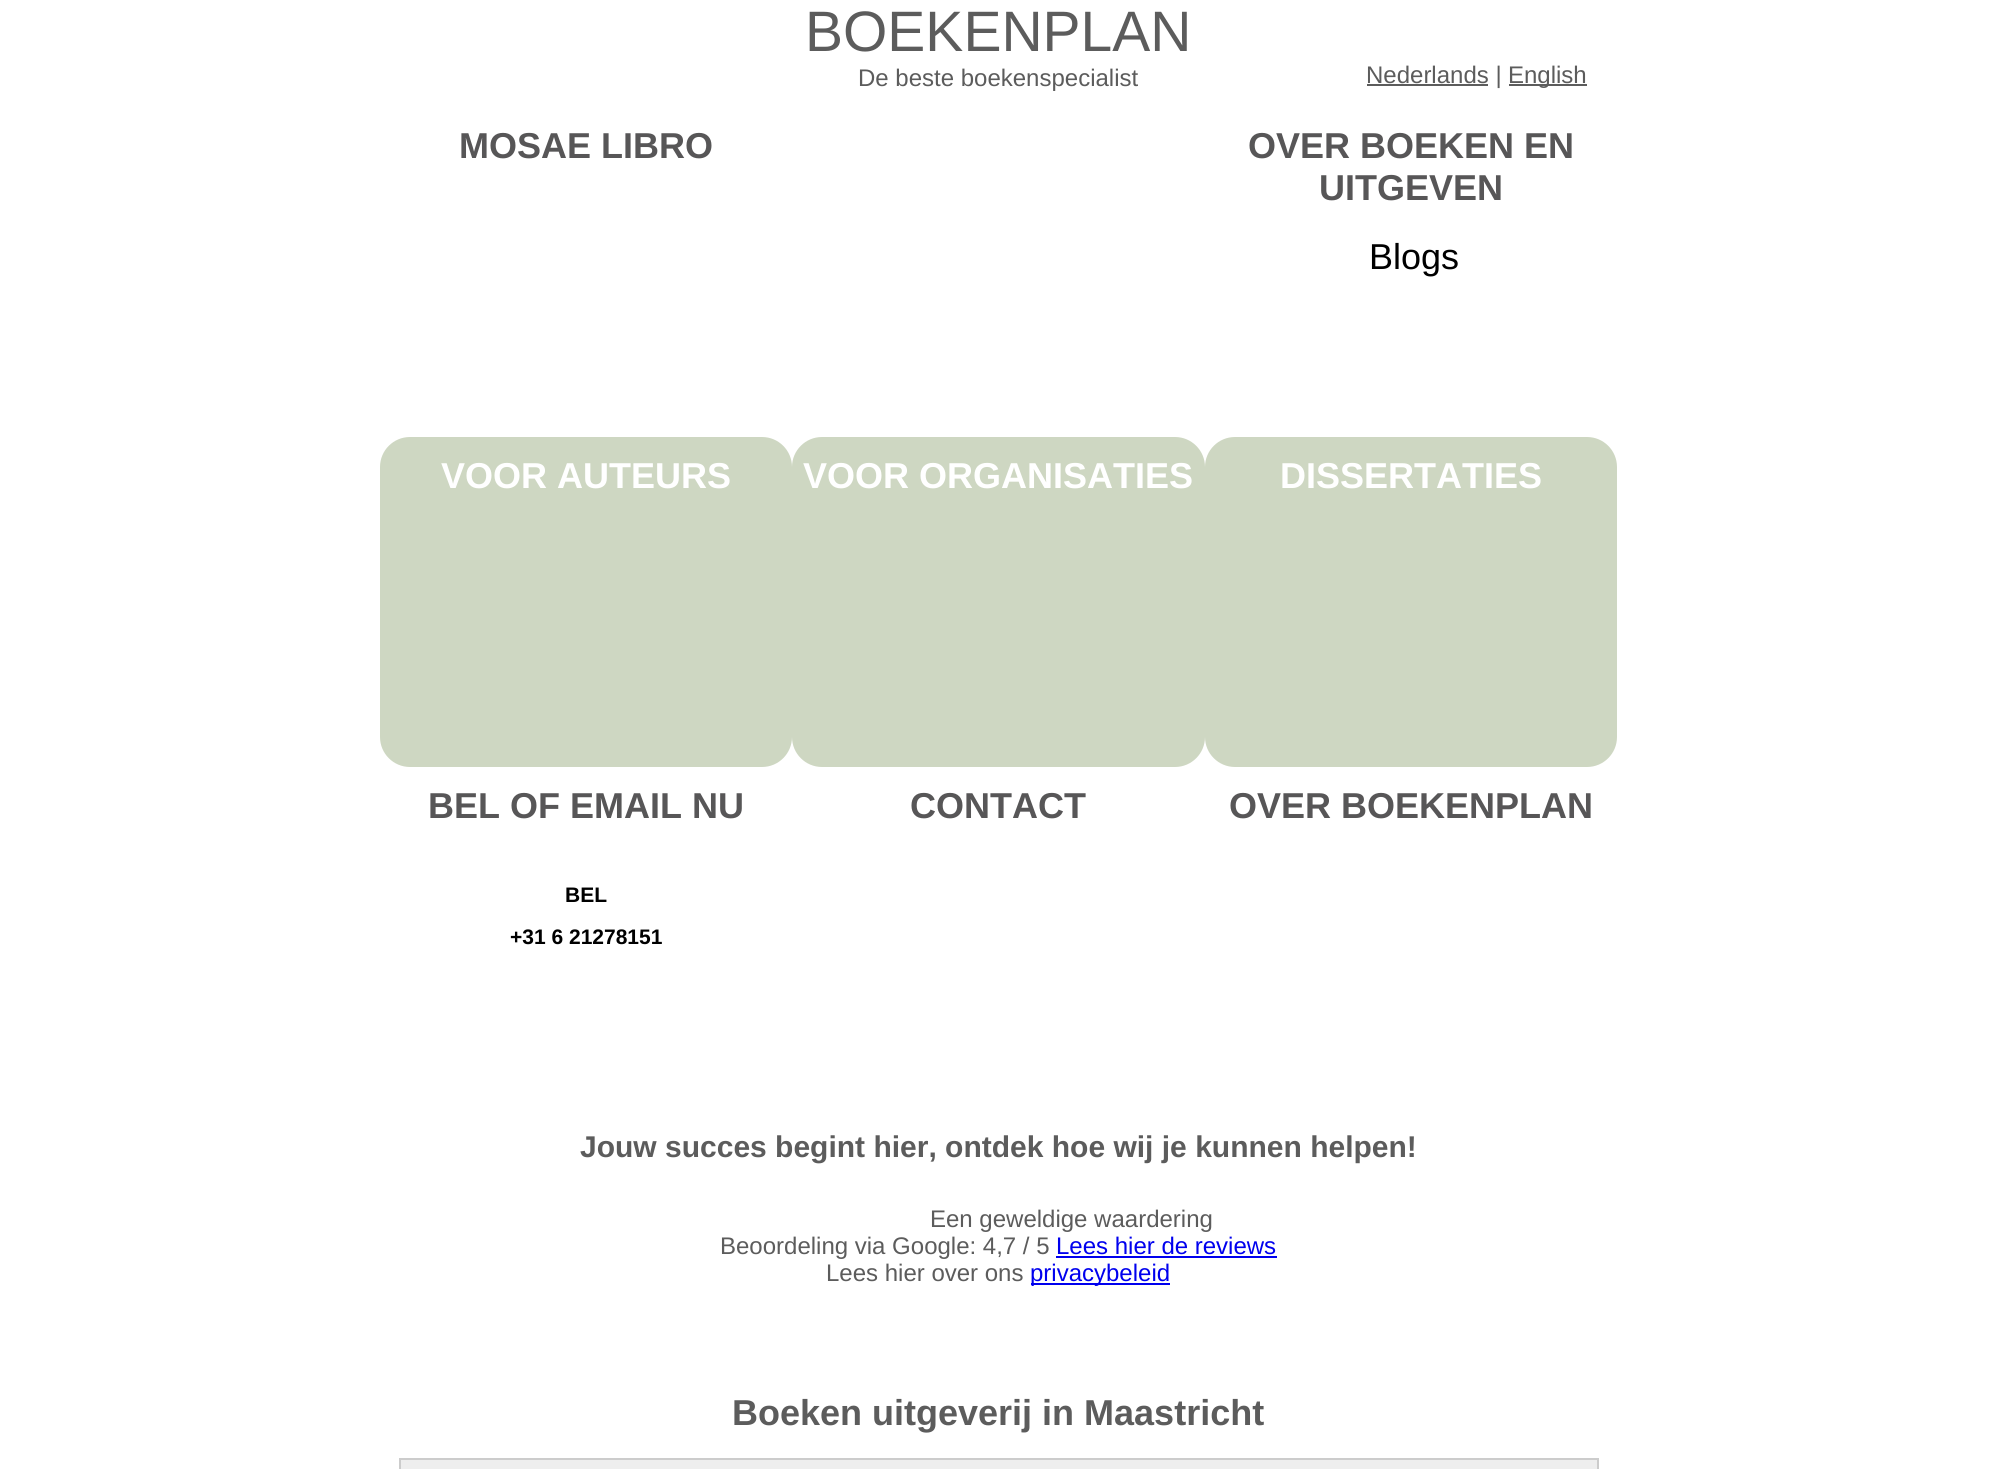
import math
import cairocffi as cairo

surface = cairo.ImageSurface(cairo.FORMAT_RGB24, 1996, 1469)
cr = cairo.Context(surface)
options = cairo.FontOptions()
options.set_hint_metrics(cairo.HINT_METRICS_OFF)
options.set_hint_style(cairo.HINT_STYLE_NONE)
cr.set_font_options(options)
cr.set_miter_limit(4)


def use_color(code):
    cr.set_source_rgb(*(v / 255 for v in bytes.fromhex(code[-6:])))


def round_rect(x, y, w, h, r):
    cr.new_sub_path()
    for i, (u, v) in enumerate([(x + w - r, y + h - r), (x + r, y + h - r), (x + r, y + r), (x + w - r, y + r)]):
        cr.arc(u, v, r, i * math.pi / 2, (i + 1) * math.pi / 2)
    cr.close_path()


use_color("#ffffff")
cr.paint()
cr.select_font_face("Liberation Sans")
cr.set_font_size(57)
use_color("#5c5c5c")
cr.move_to(805, 51)
cr.show_text("BOEKENPLAN")
cr.set_font_size(24)
cr.move_to(858, 86)
cr.show_text("De beste boekenspecialist")
cr.rectangle(1367, 84, 121, 2)
cr.fill()
cr.move_to(1366, 83)
cr.show_text("Nederlands |")
cr.rectangle(1509, 84, 78, 2)
cr.fill()
cr.move_to(1508, 83)
cr.show_text("English")
cr.select_font_face("Liberation Sans", cairo.FONT_SLANT_NORMAL, cairo.FONT_WEIGHT_BOLD)
cr.set_font_size(36)
use_color("#575657")
cr.move_to(459, 158)
cr.show_text("MOSAE LIBRO")
cr.move_to(1248, 158)
cr.show_text("OVER BOEKEN EN")
cr.move_to(1319, 200)
cr.show_text("UITGEVEN")
cr.select_font_face("Liberation Sans")
use_color("#000000")
cr.move_to(1369, 269)
cr.show_text("Blogs")
use_color("#ced7c2")
round_rect(380, 437, 412, 330, 30)
cr.fill()
cr.select_font_face("Liberation Sans", cairo.FONT_SLANT_NORMAL, cairo.FONT_WEIGHT_BOLD)
use_color("#ffffff")
cr.move_to(441, 488)
cr.show_text("VOOR AUTEURS")
use_color("#ced7c2")
round_rect(792, 437, 413, 330, 30)
cr.fill()
use_color("#ffffff")
cr.move_to(803, 488)
cr.show_text("VOOR ORGANISATIES")
use_color("#ced7c2")
round_rect(1205, 437, 412, 330, 30)
cr.fill()
use_color("#ffffff")
cr.move_to(1280, 488)
cr.show_text("DISSERTATIES")
use_color("#575657")
cr.move_to(428, 818)
cr.show_text("BEL OF EMAIL NU")
cr.set_font_size(21)
use_color("#000000")
cr.move_to(565, 902)
cr.show_text("BEL")
cr.move_to(510, 944)
cr.show_text("+31 6 21278151")
cr.set_font_size(36)
use_color("#575657")
cr.move_to(910, 818)
cr.show_text("CONTACT")
cr.move_to(1229, 818)
cr.show_text("OVER BOEKENPLAN")
cr.set_font_size(30)
use_color("#5c5c5c")
cr.move_to(580, 1157)
cr.show_text("Jouw succes begint hier, ontdek hoe wij je kunnen helpen!")
cr.select_font_face("Liberation Sans")
cr.set_font_size(24)
cr.move_to(930, 1227)
cr.show_text("Een geweldige waardering")
cr.move_to(720, 1254)
cr.show_text("Beoordeling via Google: 4,7 / 5")
use_color("#0000ee")
cr.move_to(1056, 1254)
cr.show_text("Lees hier de reviews")
cr.rectangle(1056, 1256, 221, 2)
cr.fill()
use_color("#5c5c5c")
cr.move_to(826, 1281)
cr.show_text("Lees hier over ons")
use_color("#0000ee")
cr.rectangle(1031, 1283, 139, 2)
cr.fill()
cr.move_to(1030, 1281)
cr.show_text("privacybeleid")
cr.select_font_face("Liberation Sans", cairo.FONT_SLANT_NORMAL, cairo.FONT_WEIGHT_BOLD)
cr.set_font_size(36)
use_color("#5c5c5c")
cr.move_to(732, 1425)
cr.show_text("Boeken uitgeverij in Maastricht")
use_color("#eeeeee")
cr.rectangle(400, 1459, 1198, 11)
cr.fill_preserve()
use_color("#cccccc")
cr.stroke()
surface.write_to_png("result.png")
